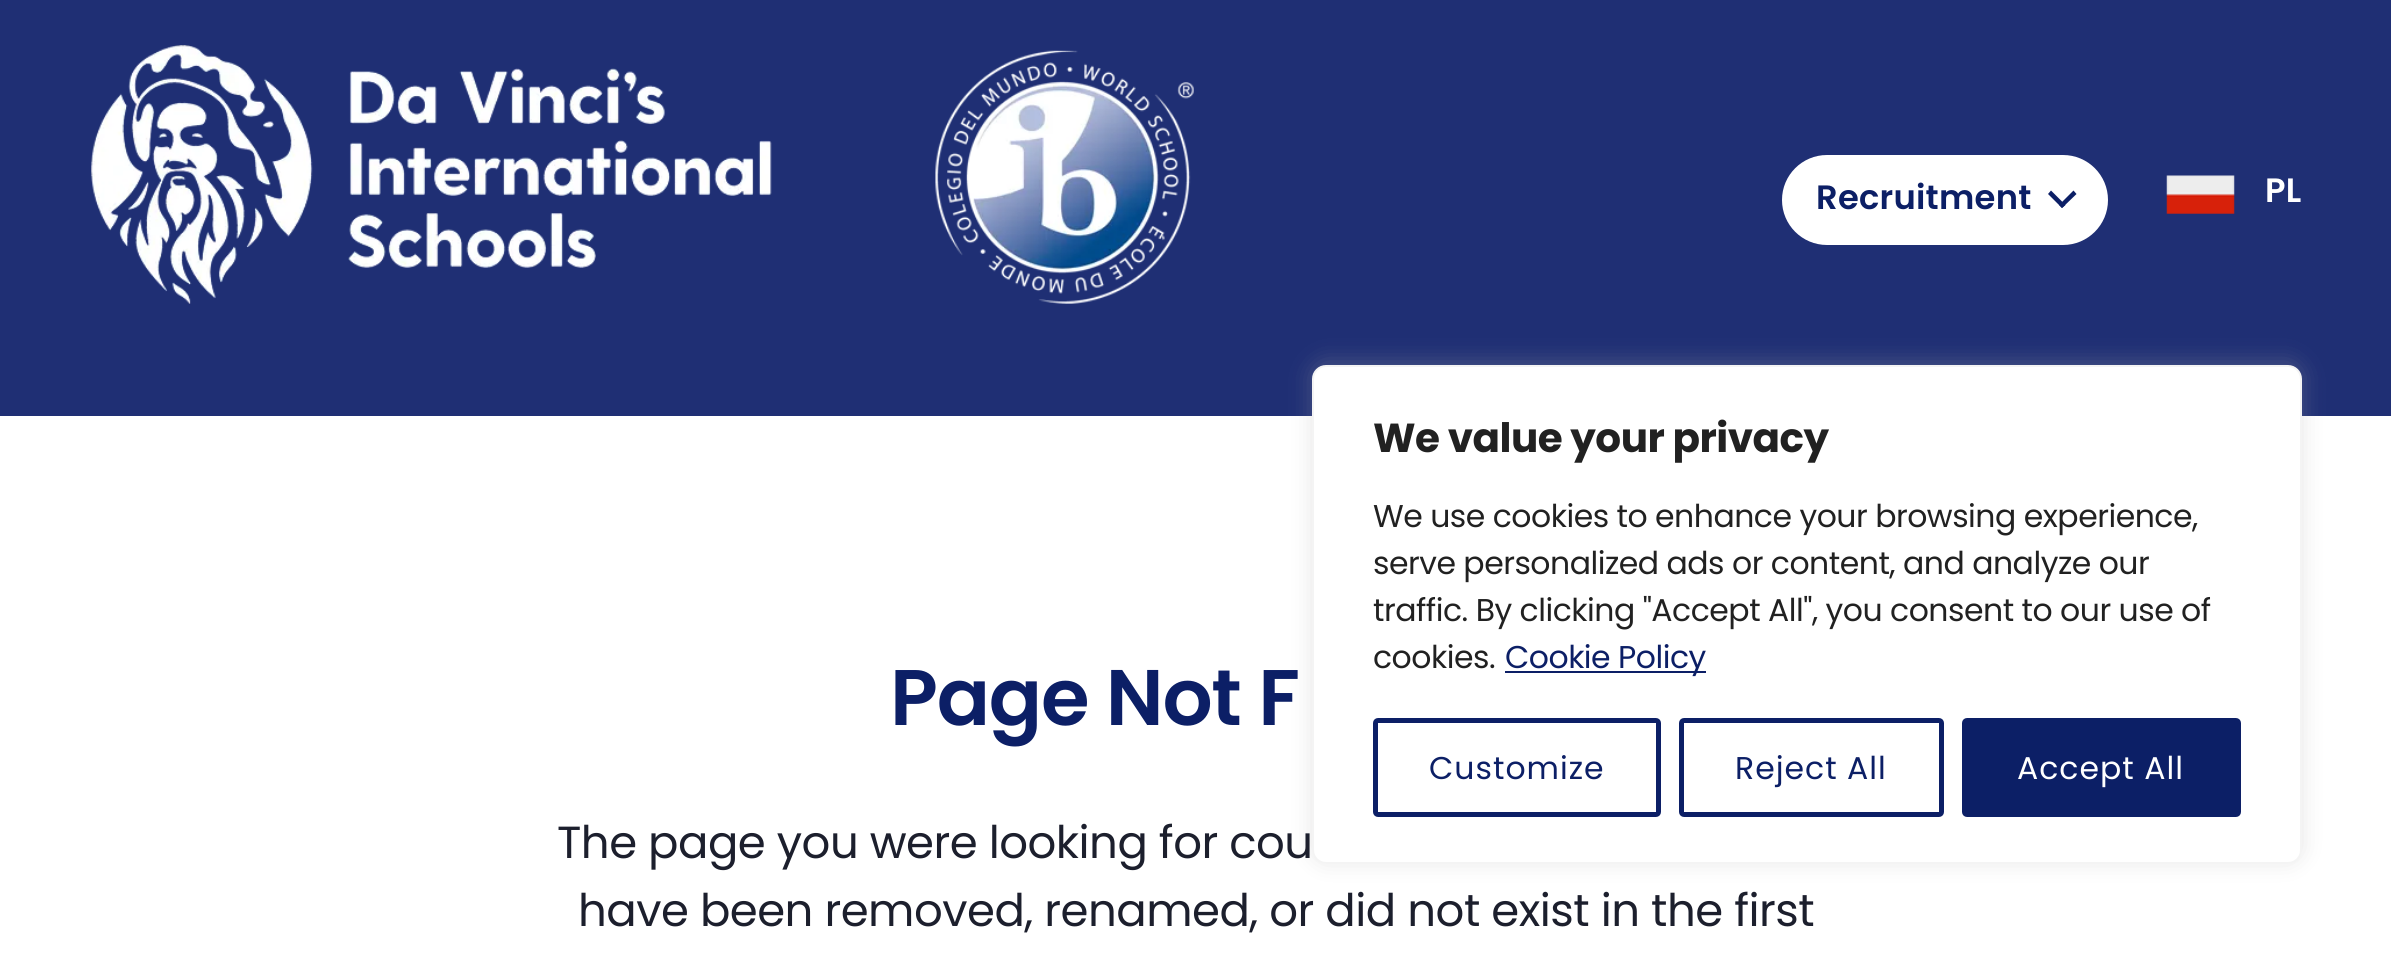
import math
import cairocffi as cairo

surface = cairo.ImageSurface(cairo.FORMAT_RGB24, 2391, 954)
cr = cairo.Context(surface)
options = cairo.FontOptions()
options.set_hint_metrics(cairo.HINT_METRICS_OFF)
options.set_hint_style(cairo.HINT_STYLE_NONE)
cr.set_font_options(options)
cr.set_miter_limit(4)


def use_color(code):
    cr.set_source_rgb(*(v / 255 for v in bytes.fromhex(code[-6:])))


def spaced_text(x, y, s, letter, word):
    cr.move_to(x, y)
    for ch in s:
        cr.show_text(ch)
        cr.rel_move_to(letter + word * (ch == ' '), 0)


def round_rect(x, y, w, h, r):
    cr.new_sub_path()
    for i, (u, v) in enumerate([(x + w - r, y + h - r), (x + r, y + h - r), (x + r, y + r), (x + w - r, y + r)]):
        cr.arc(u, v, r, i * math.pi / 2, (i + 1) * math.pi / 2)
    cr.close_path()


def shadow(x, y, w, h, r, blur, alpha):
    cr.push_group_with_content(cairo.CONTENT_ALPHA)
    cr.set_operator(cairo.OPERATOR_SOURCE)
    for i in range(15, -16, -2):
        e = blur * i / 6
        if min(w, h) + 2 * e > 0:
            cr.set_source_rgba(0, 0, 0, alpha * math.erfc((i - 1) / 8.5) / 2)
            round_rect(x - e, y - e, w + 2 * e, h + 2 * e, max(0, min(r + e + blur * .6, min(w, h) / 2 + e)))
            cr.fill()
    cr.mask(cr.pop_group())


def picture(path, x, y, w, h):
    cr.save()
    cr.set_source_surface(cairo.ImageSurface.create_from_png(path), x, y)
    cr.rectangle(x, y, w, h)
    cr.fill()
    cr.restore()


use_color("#ffffff")
cr.paint()
use_color("#1f2f74")
cr.rectangle(0, 0, 2391, 416)
cr.fill()
picture("img1.png", 91, 45, 1103, 259)
use_color("#ffffff")
round_rect(1782, 155, 326, 90, 45)
cr.fill()
cr.select_font_face("Poppins SemiBold")
cr.set_font_size(33.75)
use_color("#0c1f66")
spaced_text(1816, 209, "Recruitment", 0.25, 0)
cr.new_path()
cr.move_to(2048, 194)
cr.line_to(2051, 190.5)
cr.line_to(2065.5, 205)
cr.line_to(2062, 208)
cr.close_path()
cr.fill()
cr.new_path()
cr.move_to(2059, 205)
cr.line_to(2073.5, 190.5)
cr.line_to(2076.5, 194)
cr.line_to(2062, 208)
cr.close_path()
cr.fill()
picture("img2.png", 2166, 175, 69, 39)
use_color("#ffffff")
spaced_text(2265, 202, "PL", 0.25, 0)
use_color("#acabab")
shadow(1312, 362, 990, 500, 14, 11, 0.3)
use_color("#ffffff")
round_rect(1313, 366, 988, 497, 13)
cr.fill_preserve()
use_color("#f4f4f4")
cr.stroke()
cr.select_font_face("Poppins", cairo.FONT_SLANT_NORMAL, cairo.FONT_WEIGHT_BOLD)
cr.set_font_size(40.5)
use_color("#212121")
spaced_text(1373, 452, "We value your privacy", -0.5, 0)
cr.select_font_face("Poppins")
cr.set_font_size(31.5)
spaced_text(1373, 527, "We use cookies to enhance your browsing experience,", -0.5, 0)
spaced_text(1373, 574, "serve personalized ads or content, and analyze our", -0.5, 0)
spaced_text(1373, 621, "traffic. By clicking \"Accept All\", you consent to our use of", -0.5, 0)
spaced_text(1373, 668, "cookies.", -0.5, 0)
use_color("#0c1f66")
cr.rectangle(1505, 671, 201, 2)
cr.fill()
spaced_text(1505, 668, "Cookie Policy", -0.5, 0)
round_rect(1375.5, 720.5, 283, 94, 2.5)
cr.set_line_width(5)
cr.stroke()
spaced_text(1429, 779, "Customize", 1, 0)
round_rect(1681.5, 720.5, 260, 94, 2.5)
cr.stroke()
spaced_text(1735, 779, "Reject All", 1, 0)
round_rect(1964.5, 720.5, 274, 94, 2.5)
cr.fill_preserve()
cr.stroke()
use_color("#ffffff")
spaced_text(2017, 779, "Accept All", 1, 0)
cr.select_font_face("Poppins SemiBold")
cr.set_font_size(78.75)
use_color("#0c1f66")
spaced_text(890, 725, "Page Not F", -1.25, 0)
cr.select_font_face("Poppins")
cr.set_font_size(45)
use_color("#1c1f2d")
spaced_text(557, 858, "The page you were looking for cou", -0.5, 0)
spaced_text(578, 926, "have been removed, renamed, or did not exist in the first", -0.5, 0)
surface.write_to_png("result.png")
